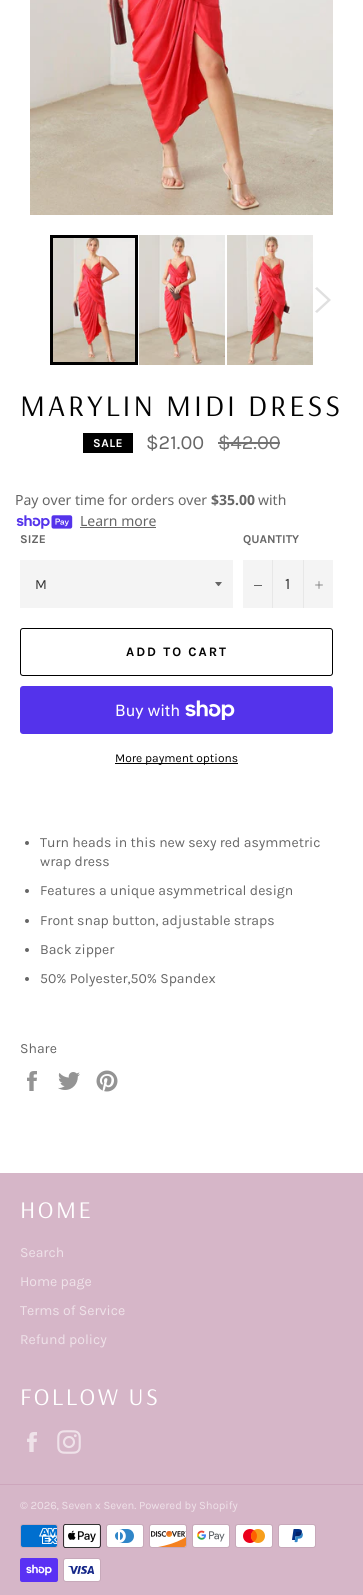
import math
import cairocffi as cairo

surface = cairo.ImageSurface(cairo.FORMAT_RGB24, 363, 1595)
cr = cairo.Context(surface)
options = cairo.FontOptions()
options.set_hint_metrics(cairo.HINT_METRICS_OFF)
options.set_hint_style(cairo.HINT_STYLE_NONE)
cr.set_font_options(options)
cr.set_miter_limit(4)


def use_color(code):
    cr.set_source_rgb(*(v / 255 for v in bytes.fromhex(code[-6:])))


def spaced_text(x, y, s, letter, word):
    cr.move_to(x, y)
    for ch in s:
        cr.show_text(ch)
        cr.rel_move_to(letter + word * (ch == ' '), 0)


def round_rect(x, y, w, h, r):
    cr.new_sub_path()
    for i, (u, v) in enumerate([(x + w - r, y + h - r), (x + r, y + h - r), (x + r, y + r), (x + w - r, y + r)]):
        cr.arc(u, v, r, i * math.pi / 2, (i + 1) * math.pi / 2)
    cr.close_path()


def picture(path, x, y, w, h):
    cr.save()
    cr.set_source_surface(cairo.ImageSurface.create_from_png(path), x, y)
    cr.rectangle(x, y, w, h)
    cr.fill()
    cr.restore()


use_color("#ffffff")
cr.paint()
picture("img1.png", 30, 0, 303, 215)
picture("img2.png", 53, 238, 82, 124)
cr.rectangle(51.5, 236.5, 85, 127)
use_color("#000000")
cr.set_line_width(3)
cr.stroke()
picture("img3.png", 139, 235, 86, 130)
picture("img4.png", 227, 235, 86, 130)
use_color("#e0e0e0")
cr.new_path()
cr.move_to(315, 288.5)
cr.line_to(317, 287)
cr.line_to(331, 300)
cr.line_to(317, 313)
cr.line_to(315, 311.5)
cr.line_to(327.5, 300)
cr.close_path()
cr.fill()
cr.select_font_face("Arsenal")
cr.set_font_size(30)
use_color("#030303")
spaced_text(20, 416, "MARYLIN MIDI DRESS", 3, 0)
use_color("#000000")
cr.rectangle(83, 433, 50, 20)
cr.fill()
cr.select_font_face("Karla", cairo.FONT_SLANT_NORMAL, cairo.FONT_WEIGHT_BOLD)
cr.set_font_size(12)
use_color("#ffffff")
spaced_text(93, 447, "SALE", 0.5, 0)
cr.select_font_face("Karla")
cr.set_font_size(20)
use_color("#666666")
cr.move_to(146, 449)
cr.show_text("$21.00")
use_color("#737373")
cr.move_to(218, 449)
cr.show_text("$42.00")
cr.rectangle(218, 442, 62, 2)
cr.fill()
cr.select_font_face("Noto Sans")
cr.set_font_size(14)
use_color("#666666")
cr.move_to(15, 505)
cr.show_text("Pay over time for orders over")
cr.select_font_face("Noto Sans", cairo.FONT_SLANT_NORMAL, cairo.FONT_WEIGHT_BOLD)
cr.move_to(211, 505)
cr.show_text("$35.00")
cr.select_font_face("Noto Sans")
cr.move_to(258, 505)
cr.show_text("with")
picture("img5.png", 16, 515, 57, 14)
cr.move_to(80, 526)
cr.show_text("Learn more")
cr.rectangle(80, 527, 76, 1)
cr.fill()
cr.select_font_face("Karla", cairo.FONT_SLANT_NORMAL, cairo.FONT_WEIGHT_BOLD)
cr.set_font_size(12)
cr.move_to(20, 543)
cr.show_text("SIZE")
use_color("#f4f4f4")
cr.rectangle(20, 560, 213, 48)
cr.fill()
use_color("#666666")
cr.new_path()
cr.move_to(215, 582)
cr.curve_to(219.5, 587.5, 217.5, 587.5, 222, 582)
cr.close_path()
cr.fill()
cr.select_font_face("Karla")
cr.set_font_size(14)
use_color("#333333")
cr.move_to(35, 589)
cr.show_text("M")
cr.select_font_face("Karla", cairo.FONT_SLANT_NORMAL, cairo.FONT_WEIGHT_BOLD)
cr.set_font_size(12)
use_color("#666666")
cr.move_to(243, 543)
cr.show_text("QUANTITY")
use_color("#f4f4f4")
cr.rectangle(243, 560, 90, 48)
cr.fill()
use_color("#e7e7e7")
cr.rectangle(272, 560, 1, 48)
cr.fill()
use_color("#666666")
cr.rectangle(254, 585, 8, 1)
cr.fill()
cr.select_font_face("Karla")
cr.set_font_size(16)
use_color("#333333")
cr.move_to(285, 589)
cr.show_text("1")
use_color("#e7e7e7")
cr.rectangle(303, 560, 1, 48)
cr.fill()
picture("img6.png", 315, 581, 8, 8)
round_rect(20.5, 628.5, 312, 47, 2.5)
use_color("#000000")
cr.set_line_width(1)
cr.stroke()
cr.select_font_face("Karla", cairo.FONT_SLANT_NORMAL, cairo.FONT_WEIGHT_BOLD)
cr.set_font_size(13)
use_color("#030303")
spaced_text(126, 656, "ADD TO CART", 2, 0)
use_color("#5433eb")
round_rect(20, 686, 313, 48, 3)
cr.fill()
cr.select_font_face("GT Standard")
cr.set_font_size(16)
use_color("#ffffff")
cr.move_to(115, 716)
cr.show_text("Buy with")
picture("img7.png", 185, 700, 50, 20)
use_color("#000000")
cr.rectangle(115, 763, 123, 1)
cr.fill()
cr.select_font_face("Karla")
cr.set_font_size(12)
use_color("#030303")
cr.move_to(115, 762)
cr.show_text("More payment options")
use_color("#666666")
cr.new_path()
cr.arc(27, 843, 2, 0, 2 * math.pi)
cr.fill()
cr.set_font_size(14)
cr.move_to(40, 847)
cr.show_text("Turn heads in this new sexy red asymmetric")
cr.move_to(40, 866)
cr.show_text("wrap dress")
cr.new_path()
cr.arc(27, 891, 2, 0, 2 * math.pi)
cr.fill()
cr.move_to(40, 895)
cr.show_text("Features a unique asymmetrical design")
cr.new_path()
cr.arc(27, 921, 2, 0, 2 * math.pi)
cr.fill()
cr.move_to(40, 925)
cr.show_text("Front snap button, adjustable straps")
cr.new_path()
cr.arc(27, 950, 2, 0, 2 * math.pi)
cr.fill()
cr.move_to(40, 954)
cr.show_text("Back zipper")
cr.new_path()
cr.arc(27, 979, 2, 0, 2 * math.pi)
cr.fill()
cr.move_to(40, 983)
cr.show_text("50% Polyester,50% Spandex")
cr.move_to(20, 1053)
cr.show_text("Share")
picture("img8.png", 27, 1071, 10, 20)
picture("img9.png", 58, 1072, 22, 18)
picture("img10.png", 96, 1070, 22, 22)
use_color("#d6b6c8")
cr.rectangle(0, 1173, 363, 422)
cr.fill()
cr.select_font_face("Arsenal")
cr.set_font_size(24)
use_color("#ffffff")
spaced_text(20, 1218, "HOME", 2.5, 0)
cr.select_font_face("Karla")
cr.set_font_size(14)
use_color("#efe2e9")
cr.move_to(20, 1257)
cr.show_text("Search")
cr.move_to(20, 1286)
cr.show_text("Home page")
cr.move_to(20, 1315)
cr.show_text("Terms of Service")
cr.move_to(20, 1344)
cr.show_text("Refund policy")
cr.select_font_face("Arsenal")
cr.set_font_size(24)
use_color("#ffffff")
spaced_text(20, 1405, "FOLLOW US", 2.5, 0)
picture("img11.png", 27, 1432, 10, 20)
picture("img12.png", 57, 1430, 24, 24)
use_color("#cda6bc")
cr.rectangle(0, 1484, 363, 1)
cr.fill()
cr.select_font_face("Karla")
cr.set_font_size(11.25)
use_color("#efe2e9")
cr.move_to(20, 1509)
cr.show_text("© 2026, Seven x Seven. Powered by Shopify")
picture("img13.png", 20, 1524, 38, 24)
picture("img14.png", 63, 1524, 38, 24)
picture("img15.png", 106, 1524, 38, 24)
picture("img16.png", 149, 1524, 38, 24)
picture("img17.png", 192, 1524, 38, 24)
picture("img18.png", 235, 1524, 38, 24)
picture("img19.png", 278, 1524, 38, 24)
picture("img20.png", 20, 1558, 38, 24)
picture("img21.png", 63, 1558, 38, 24)
surface.write_to_png("result.png")
